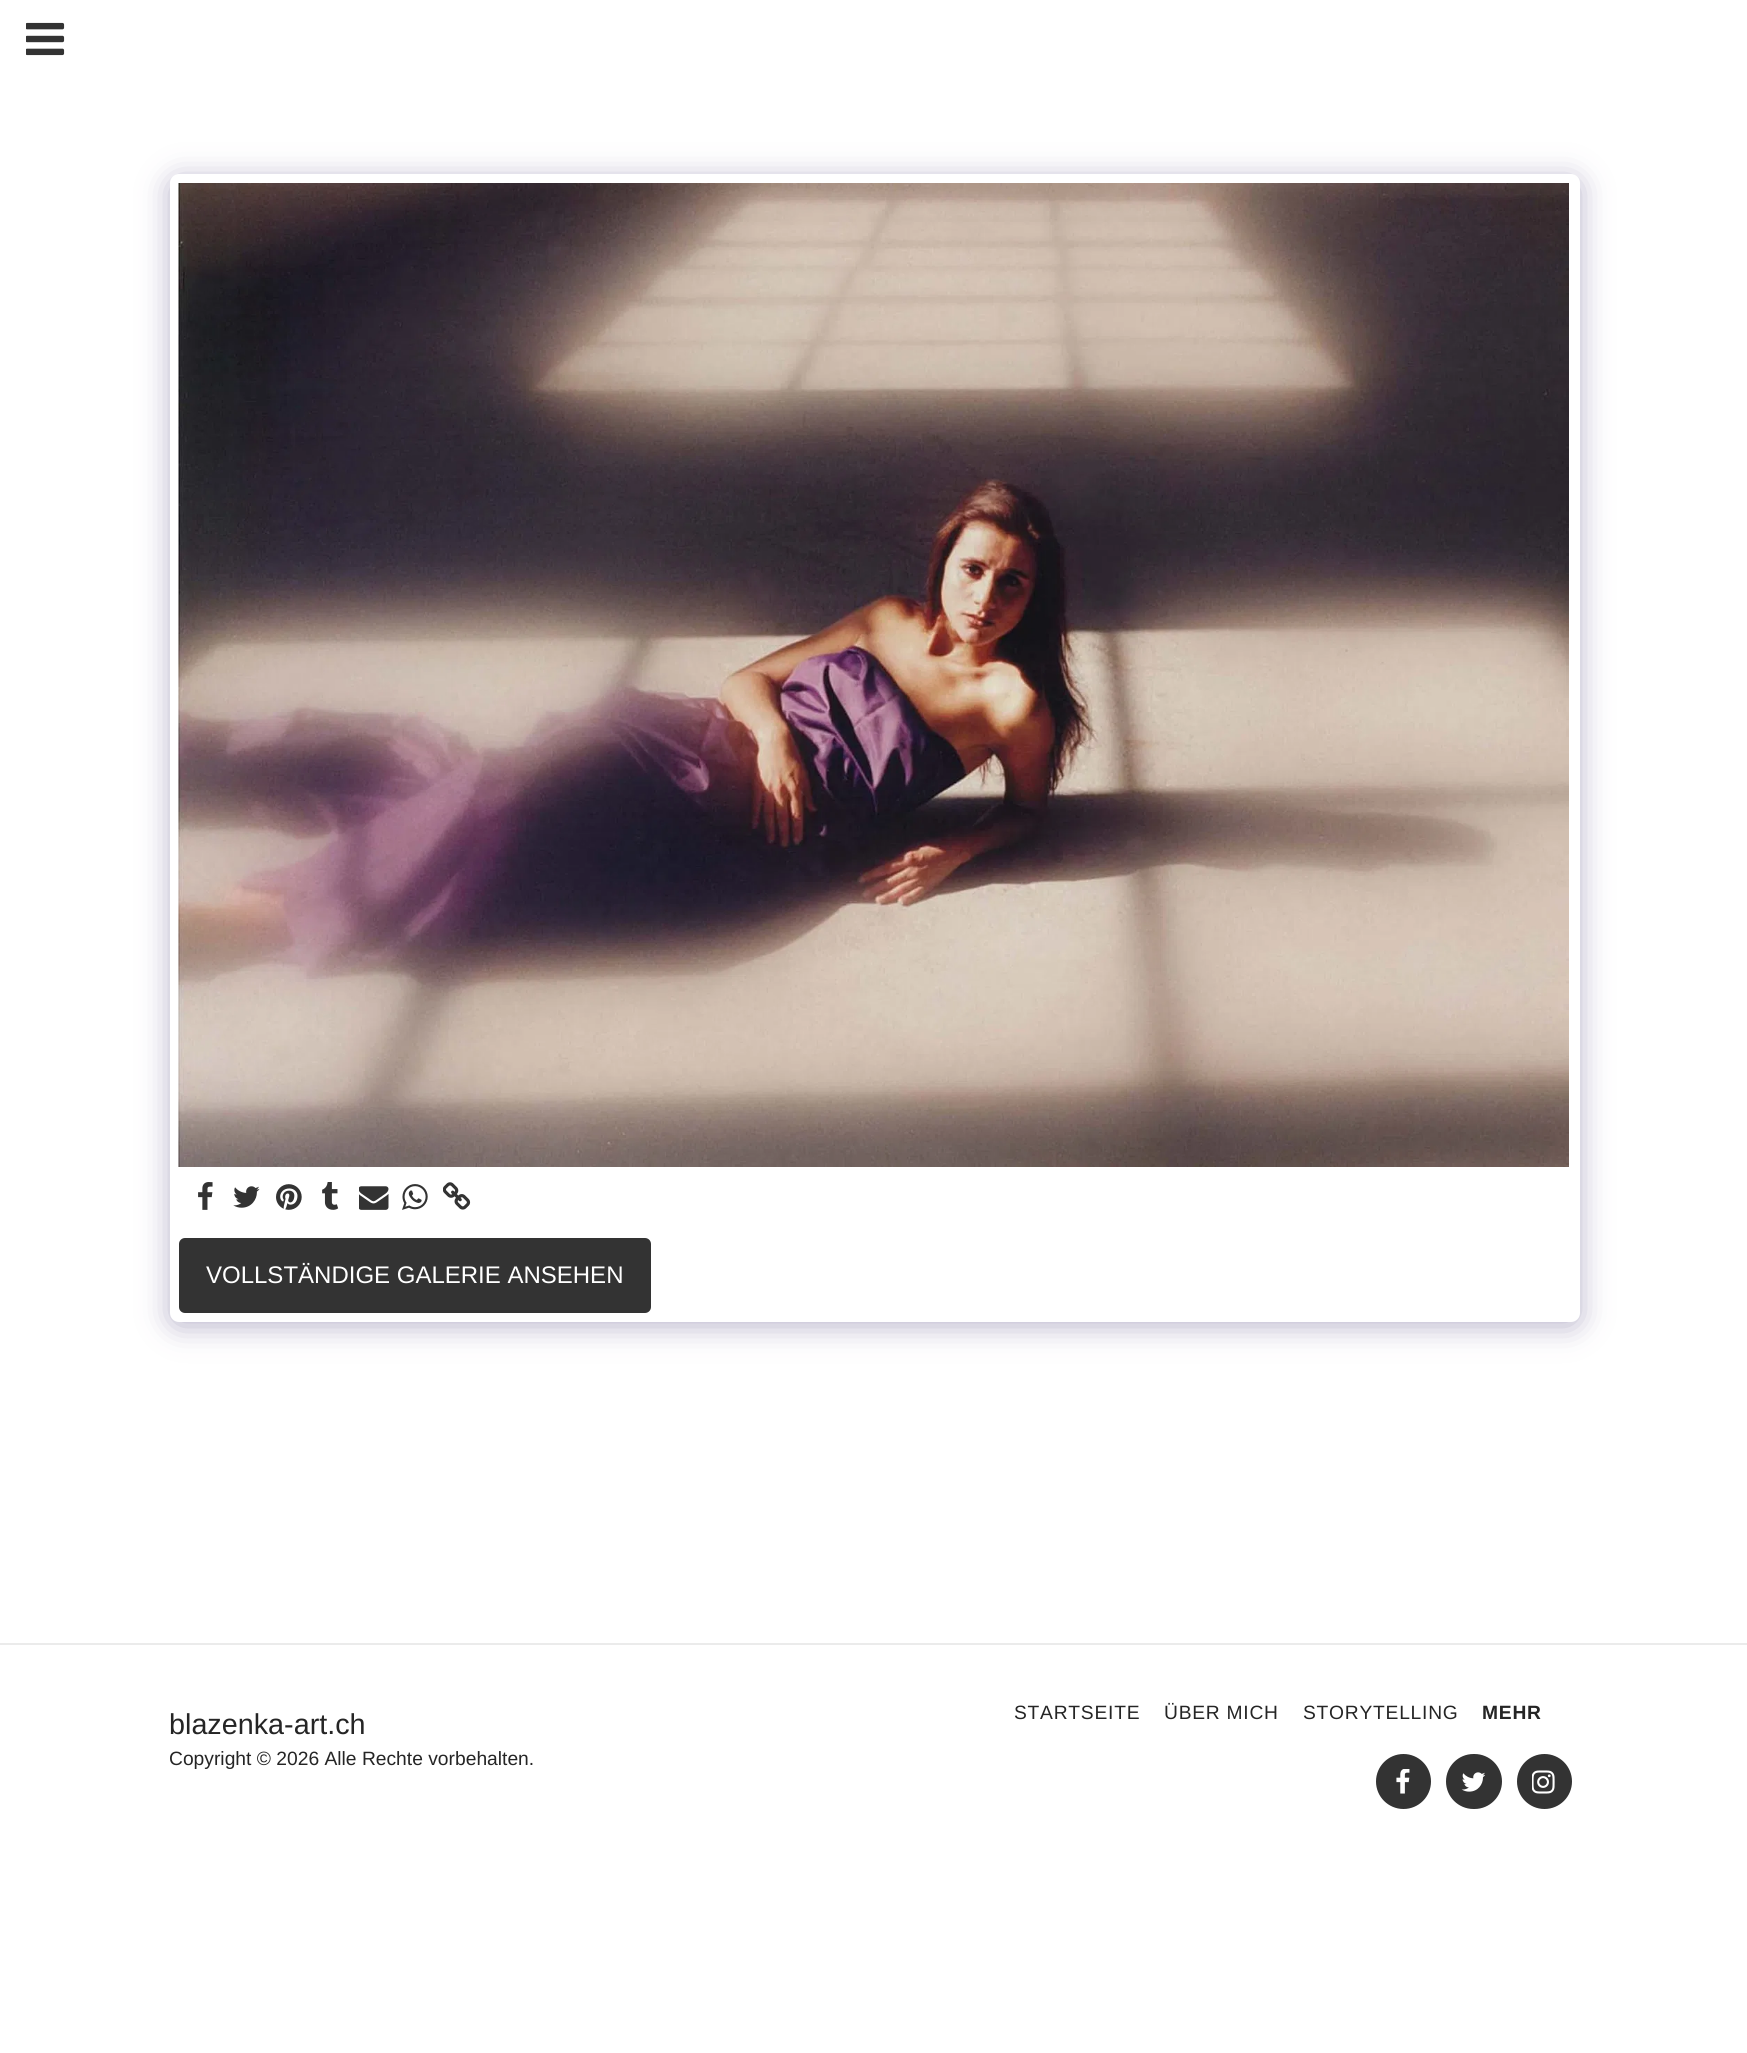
import math
import cairocffi as cairo

surface = cairo.ImageSurface(cairo.FORMAT_RGB24, 1747, 2053)
cr = cairo.Context(surface)
options = cairo.FontOptions()
options.set_hint_metrics(cairo.HINT_METRICS_OFF)
options.set_hint_style(cairo.HINT_STYLE_NONE)
cr.set_font_options(options)
cr.set_miter_limit(4)


def use_color(code):
    cr.set_source_rgb(*(v / 255 for v in bytes.fromhex(code[-6:])))


def spaced_text(x, y, s, letter, word):
    cr.move_to(x, y)
    for ch in s:
        cr.show_text(ch)
        cr.rel_move_to(letter + word * (ch == ' '), 0)


def round_rect(x, y, w, h, r):
    cr.new_sub_path()
    for i, (u, v) in enumerate([(x + w - r, y + h - r), (x + r, y + h - r), (x + r, y + r), (x + w - r, y + r)]):
        cr.arc(u, v, r, i * math.pi / 2, (i + 1) * math.pi / 2)
    cr.close_path()


def shadow(x, y, w, h, r, blur, alpha):
    cr.push_group_with_content(cairo.CONTENT_ALPHA)
    cr.set_operator(cairo.OPERATOR_SOURCE)
    for i in range(15, -16, -2):
        e = blur * i / 6
        if min(w, h) + 2 * e > 0:
            cr.set_source_rgba(0, 0, 0, alpha * math.erfc((i - 1) / 8.5) / 2)
            round_rect(x - e, y - e, w + 2 * e, h + 2 * e, max(0, min(r + e + blur * .6, min(w, h) / 2 + e)))
            cr.fill()
    cr.mask(cr.pop_group())


def picture(path, x, y, w, h):
    cr.save()
    cr.set_source_surface(cairo.ImageSurface.create_from_png(path), x, y)
    cr.rectangle(x, y, w, h)
    cr.fill()
    cr.restore()


use_color("#ffffff")
cr.paint()
picture("img1.png", 26, 22, 39, 34)
use_color("#4d3f7a")
shadow(170, 179, 1410, 1147, 9, 15, 0.4)
use_color("#ffffff")
round_rect(170, 174, 1410, 1148, 9)
cr.fill()
picture("img2.png", 178, 183, 1391, 984)
picture("img3.png", 198, 1182, 15, 28)
picture("img4.png", 233, 1186, 27, 22)
picture("img5.png", 276, 1184, 26, 26)
picture("img6.png", 322, 1182, 17, 28)
picture("img7.png", 359, 1186, 30, 24)
picture("img8.png", 402, 1184, 26, 26)
picture("img9.png", 443, 1182, 28, 28)
use_color("#333333")
round_rect(180, 1239, 470, 73, 5)
cr.fill_preserve()
cr.stroke()
cr.select_font_face("Liberation Sans")
cr.set_font_size(24)
use_color("#ffffff")
cr.move_to(206, 1283)
cr.show_text("VOLLSTÄNDIGE GALERIE ANSEHEN")
use_color("#ebebeb")
cr.rectangle(0, 1643, 1747, 2)
cr.fill()
cr.set_font_size(19.25)
use_color("#252525")
spaced_text(1014, 1719, "STARTSEITE", 0.75, 0)
spaced_text(1164, 1719, "ÜBER MICH", 0.75, 0)
spaced_text(1303, 1719, "STORYTELLING", 0.75, 0)
cr.select_font_face("Liberation Sans", cairo.FONT_SLANT_NORMAL, cairo.FONT_WEIGHT_BOLD)
spaced_text(1482, 1719, "MEHR", 0.75, 0)
use_color("#333333")
cr.new_path()
cr.arc(1403.5, 1781.5, 26.5, 0, 2 * math.pi)
cr.fill_preserve()
cr.stroke()
picture("img10.png", 1396, 1769, 14, 25)
round_rect(1447, 1755, 54, 53, 26.5)
cr.fill_preserve()
cr.stroke()
picture("img11.png", 1461, 1772, 24, 20)
cr.arc(1544.5, 1781.5, 26.5, 0, 2 * math.pi)
cr.fill_preserve()
cr.stroke()
picture("img12.png", 1532, 1770, 23, 24)
cr.select_font_face("Liberation Sans")
cr.set_font_size(28.75)
use_color("#252525")
cr.move_to(169, 1734)
cr.show_text("blazenka-art.ch")
cr.set_font_size(19.25)
cr.move_to(169, 1765)
cr.show_text("Copyright © 2026 Alle Rechte vorbehalten.")
surface.write_to_png("result.png")
